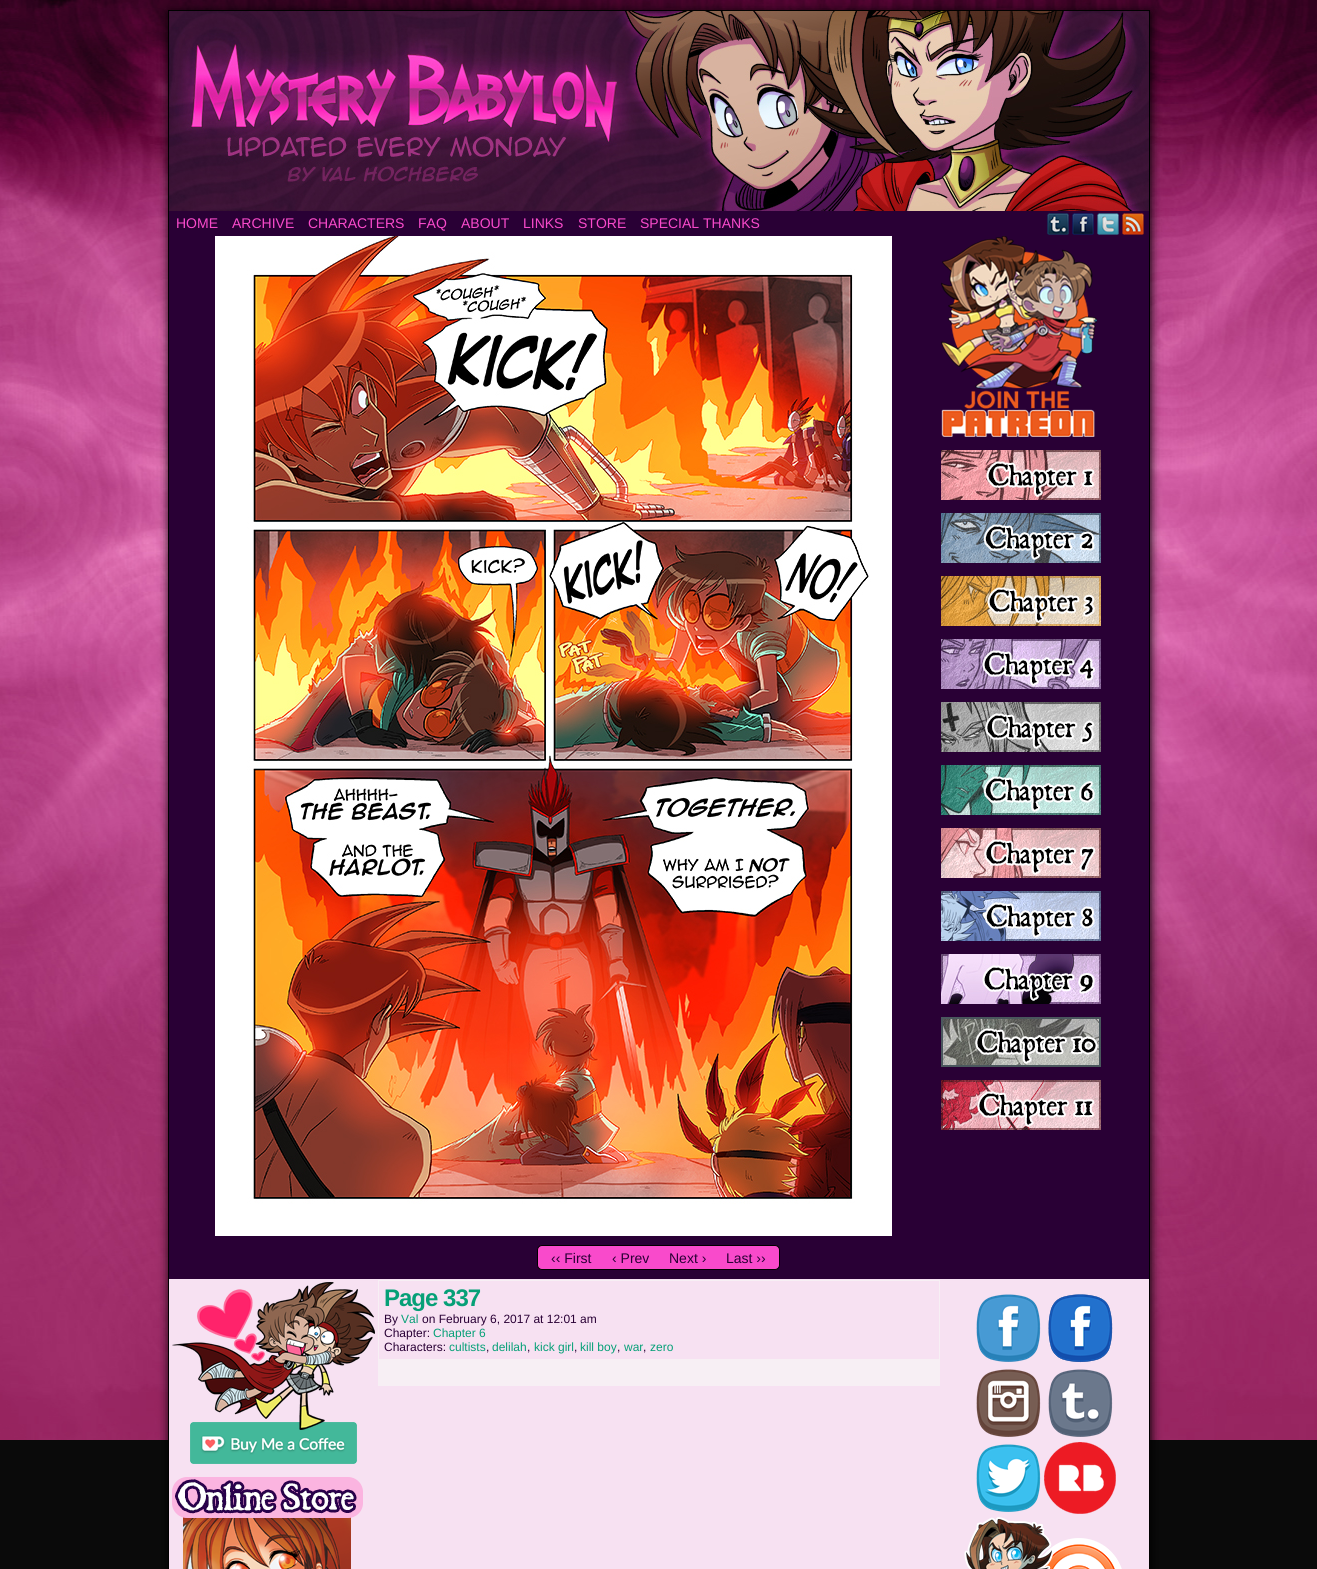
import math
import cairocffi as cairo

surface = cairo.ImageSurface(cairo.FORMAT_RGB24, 1317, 1569)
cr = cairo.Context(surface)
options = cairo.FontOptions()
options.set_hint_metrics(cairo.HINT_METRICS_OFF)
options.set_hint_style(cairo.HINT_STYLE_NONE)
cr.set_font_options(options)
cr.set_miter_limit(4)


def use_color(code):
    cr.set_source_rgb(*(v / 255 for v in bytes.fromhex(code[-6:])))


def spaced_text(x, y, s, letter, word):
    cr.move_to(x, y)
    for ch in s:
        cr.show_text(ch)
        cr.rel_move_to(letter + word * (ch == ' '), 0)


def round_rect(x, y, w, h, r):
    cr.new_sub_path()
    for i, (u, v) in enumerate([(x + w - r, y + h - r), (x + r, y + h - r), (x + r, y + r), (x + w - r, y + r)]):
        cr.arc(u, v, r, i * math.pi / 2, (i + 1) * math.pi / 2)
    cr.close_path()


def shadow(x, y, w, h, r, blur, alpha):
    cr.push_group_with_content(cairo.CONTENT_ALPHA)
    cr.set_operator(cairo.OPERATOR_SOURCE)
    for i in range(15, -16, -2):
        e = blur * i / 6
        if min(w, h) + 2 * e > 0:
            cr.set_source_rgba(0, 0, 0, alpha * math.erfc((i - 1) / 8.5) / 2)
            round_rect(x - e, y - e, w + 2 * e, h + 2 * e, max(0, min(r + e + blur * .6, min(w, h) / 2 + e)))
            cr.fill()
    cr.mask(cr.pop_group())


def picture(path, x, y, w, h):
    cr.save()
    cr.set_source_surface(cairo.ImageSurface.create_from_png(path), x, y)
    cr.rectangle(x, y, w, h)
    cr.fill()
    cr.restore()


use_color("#0a0a0a")
cr.paint()
picture("img1.png", 0, 0, 1317, 1440)
use_color("#000000")
shadow(169, 12, 982, 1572, 0, 5, 1)
cr.rectangle(168.5, 10.5, 981, 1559)
use_color("#000000")
cr.set_line_width(1)
cr.stroke()
picture("img2.png", 169, 11, 980, 200)
use_color("#290035")
cr.rectangle(169, 211, 980, 1068)
cr.fill()
cr.select_font_face("Liberation Sans")
cr.set_font_size(14)
use_color("#f94acb")
cr.move_to(176, 228)
cr.show_text("HOME")
cr.move_to(232, 228)
cr.show_text("ARCHIVE")
cr.move_to(308, 228)
cr.show_text("CHARACTERS")
cr.move_to(418, 228)
cr.show_text("FAQ")
cr.move_to(461, 228)
cr.show_text("ABOUT")
cr.move_to(523, 228)
cr.show_text("LINKS")
cr.move_to(578, 228)
cr.show_text("STORE")
cr.move_to(640, 228)
cr.show_text("SPECIAL THANKS")
picture("img3.png", 1047, 213, 22, 22)
picture("img4.png", 1072, 213, 22, 22)
picture("img5.png", 1097, 213, 22, 22)
picture("img6.png", 1122, 213, 22, 22)
picture("img7.png", 215, 236, 677, 1000)
picture("img8.png", 941, 236, 156, 201)
picture("img9.png", 941, 450, 160, 50)
picture("img10.png", 941, 513, 160, 50)
picture("img11.png", 941, 576, 160, 50)
picture("img12.png", 941, 639, 160, 50)
picture("img13.png", 941, 702, 160, 50)
picture("img14.png", 941, 765, 160, 50)
picture("img15.png", 941, 828, 160, 50)
picture("img16.png", 941, 891, 160, 50)
picture("img17.png", 941, 954, 160, 50)
picture("img18.png", 941, 1017, 160, 50)
picture("img19.png", 941, 1080, 160, 50)
round_rect(537.5, 1245.5, 242, 24, 4.5)
cr.fill_preserve()
use_color("#000000")
cr.stroke()
use_color("#290035")
cr.move_to(551, 1263)
cr.show_text("‹‹ First")
cr.move_to(612, 1263)
cr.show_text("‹ Prev")
cr.move_to(669, 1263)
cr.show_text("Next ›")
cr.move_to(726, 1263)
cr.show_text("Last ››")
use_color("#f7e1f2")
cr.rectangle(169, 1279, 980, 290)
cr.fill()
picture("img20.png", 172, 1282, 203, 182)
picture("img21.png", 172, 1477, 191, 92)
use_color("#f7eff4")
cr.rectangle(378, 1280, 562, 106)
cr.fill()
use_color("#f7e1f2")
cr.rectangle(379, 1281, 560, 78)
cr.fill()
cr.select_font_face("Liberation Sans", cairo.FONT_SLANT_NORMAL, cairo.FONT_WEIGHT_BOLD)
cr.set_font_size(24)
use_color("#06a077")
spaced_text(384, 1306, "Page 337", -1, 0)
cr.select_font_face("Liberation Sans")
cr.set_font_size(12)
use_color("#290035")
cr.move_to(384, 1323)
cr.show_text("By")
use_color("#06a077")
cr.move_to(401, 1323)
cr.show_text("Val")
use_color("#290035")
cr.move_to(422, 1323)
cr.show_text("on February 6, 2017 at 12:01 am")
cr.move_to(384, 1337)
cr.show_text("Chapter:")
use_color("#06a077")
cr.move_to(433, 1337)
cr.show_text("Chapter 6")
use_color("#290035")
cr.move_to(384, 1351)
cr.show_text("Characters:")
use_color("#06a077")
cr.move_to(449, 1351)
cr.show_text("cultists")
use_color("#290035")
cr.move_to(486, 1351)
cr.show_text(",")
use_color("#06a077")
cr.move_to(492, 1351)
cr.show_text("delilah")
use_color("#290035")
cr.move_to(527, 1351)
cr.show_text(",")
use_color("#06a077")
cr.move_to(534, 1351)
cr.show_text("kick girl")
use_color("#290035")
cr.move_to(574, 1351)
cr.show_text(",")
use_color("#06a077")
cr.move_to(580, 1351)
cr.show_text("kill boy")
use_color("#290035")
cr.move_to(617, 1351)
cr.show_text(",")
use_color("#06a077")
cr.move_to(624, 1351)
cr.show_text("war")
use_color("#290035")
cr.move_to(643, 1351)
cr.show_text(",")
use_color("#06a077")
cr.move_to(650, 1351)
cr.show_text("zero")
picture("img22.png", 976, 1294, 65, 68)
picture("img23.png", 1048, 1294, 65, 69)
picture("img24.png", 976, 1369, 65, 68)
picture("img25.png", 1048, 1369, 65, 68)
picture("img26.png", 976, 1444, 65, 68)
picture("img27.png", 1044, 1442, 72, 72)
picture("img28.png", 964, 1517, 158, 52)
surface.write_to_png("result.png")
